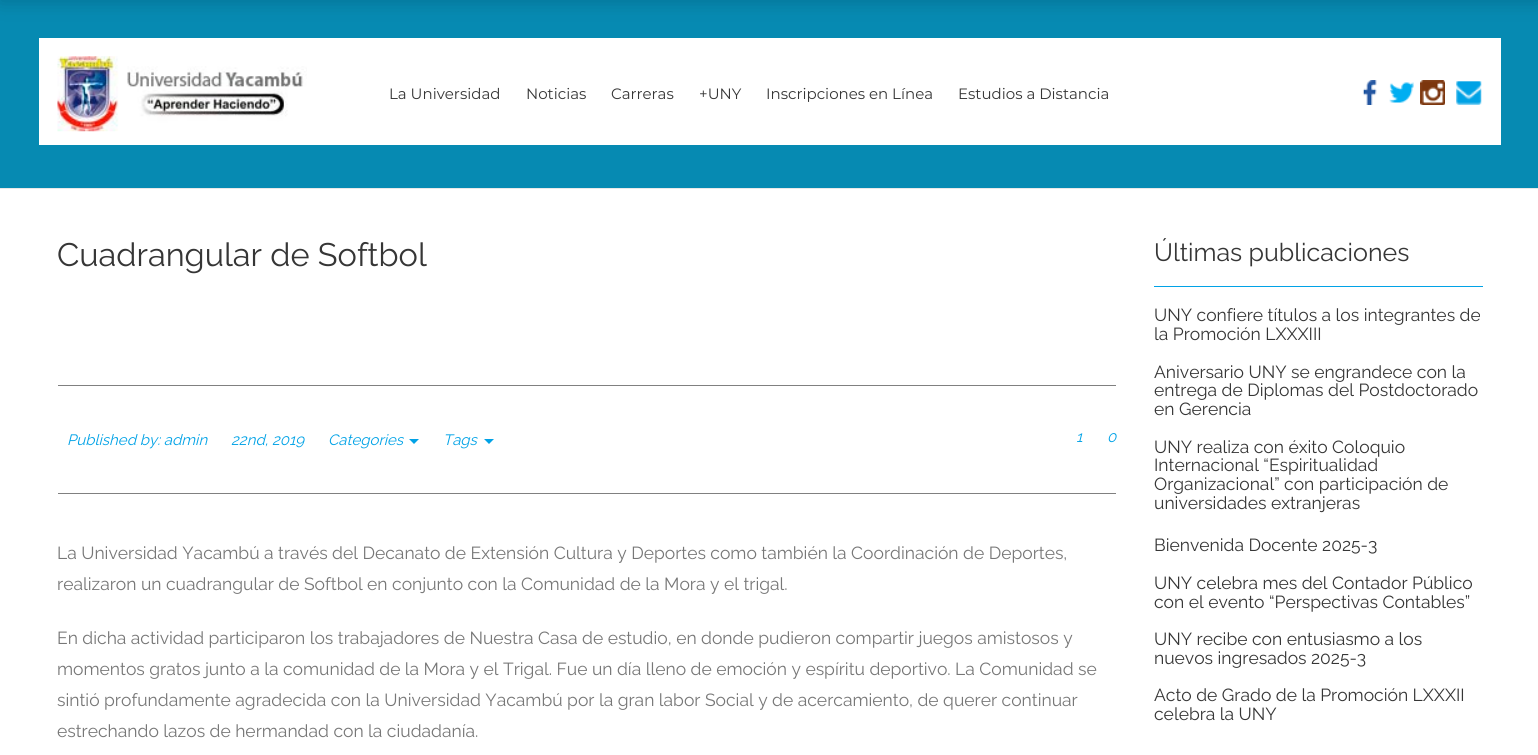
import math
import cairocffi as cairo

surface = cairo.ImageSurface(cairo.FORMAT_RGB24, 1538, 755)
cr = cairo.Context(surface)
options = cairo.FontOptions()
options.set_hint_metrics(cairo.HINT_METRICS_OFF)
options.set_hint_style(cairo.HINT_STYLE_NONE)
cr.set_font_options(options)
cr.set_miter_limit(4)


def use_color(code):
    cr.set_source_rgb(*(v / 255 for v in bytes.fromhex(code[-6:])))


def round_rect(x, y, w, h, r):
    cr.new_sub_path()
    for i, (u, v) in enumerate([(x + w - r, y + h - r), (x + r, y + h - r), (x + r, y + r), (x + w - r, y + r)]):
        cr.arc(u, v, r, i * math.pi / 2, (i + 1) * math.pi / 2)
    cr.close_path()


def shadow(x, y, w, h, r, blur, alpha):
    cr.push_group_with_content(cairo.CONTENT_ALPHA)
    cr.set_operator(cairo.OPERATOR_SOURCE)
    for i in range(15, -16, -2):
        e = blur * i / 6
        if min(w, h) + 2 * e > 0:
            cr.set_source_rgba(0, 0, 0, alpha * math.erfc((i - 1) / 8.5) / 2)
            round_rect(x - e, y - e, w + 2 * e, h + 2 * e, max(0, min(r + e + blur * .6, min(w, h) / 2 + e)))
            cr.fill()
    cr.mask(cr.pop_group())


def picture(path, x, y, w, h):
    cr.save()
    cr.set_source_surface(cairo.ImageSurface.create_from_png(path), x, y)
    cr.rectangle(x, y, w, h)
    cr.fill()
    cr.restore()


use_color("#ffffff")
cr.paint()
use_color("#068ab2")
cr.rectangle(0, 0, 1538, 188)
cr.fill()
use_color("#000709")
shadow(0, -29, 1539, 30, 0, 9.5, 0.2)
use_color("#ffffff")
cr.rectangle(39, 38, 1462, 107)
cr.fill()
picture("img1.png", 57, 56, 250, 76)
cr.select_font_face("Montserrat Thin")
cr.set_font_size(15)
use_color("#363636")
cr.move_to(389, 99)
cr.show_text("La Universidad")
cr.move_to(526, 99)
cr.show_text("Noticias")
cr.move_to(611, 99)
cr.show_text("Carreras")
cr.move_to(699, 99)
cr.show_text("+UNY")
cr.move_to(766, 99)
cr.show_text("Inscripciones en Línea")
cr.move_to(958, 99)
cr.show_text("Estudios a Distancia")
picture("img2.png", 1362, 80, 15, 25)
picture("img3.png", 1389, 82, 25, 21)
picture("img4.png", 1420, 80, 25, 25)
picture("img5.png", 1456, 81, 26, 24)
use_color("#e8e8e8")
cr.rectangle(0, 188, 1538, 1)
cr.fill()
cr.select_font_face("Raleway Thin")
cr.set_font_size(32.5)
use_color("#363636")
cr.move_to(57, 266)
cr.show_text("Cuadrangular de Softbol")
use_color("#808080")
cr.rectangle(58, 385, 1058, 1)
cr.fill()
cr.select_font_face("Raleway Thin", cairo.FONT_SLANT_ITALIC)
cr.set_font_size(15)
use_color("#01a2e6")
cr.move_to(67, 445)
cr.show_text("Published by: admin")
cr.move_to(231, 445)
cr.show_text("22nd, 2019")
cr.move_to(328, 445)
cr.show_text("Categories")
cr.new_path()
cr.move_to(409, 439)
cr.line_to(419, 439)
cr.line_to(414, 444)
cr.close_path()
cr.fill()
cr.move_to(443, 445)
cr.show_text("Tags")
cr.new_path()
cr.move_to(484, 439)
cr.line_to(494, 439)
cr.line_to(489, 444)
cr.close_path()
cr.fill()
cr.move_to(1076, 442)
cr.show_text("1")
cr.move_to(1107, 442)
cr.show_text("0")
use_color("#808080")
cr.rectangle(58, 493, 1058, 1)
cr.fill()
cr.select_font_face("Raleway Thin")
cr.set_font_size(17.5)
use_color("#777777")
cr.move_to(57, 559)
cr.show_text("La Universidad Yacambú a través del Decanato de Extensión Cultura y Deportes como también la Coordinación de Deportes,")
cr.move_to(57, 590)
cr.show_text("realizaron un cuadrangular de Softbol en conjunto con la Comunidad de la Mora y el trigal.")
cr.move_to(57, 644)
cr.show_text("En dicha actividad participaron los trabajadores de Nuestra Casa de estudio, en donde pudieron compartir juegos amistosos y")
cr.move_to(57, 675)
cr.show_text("momentos gratos junto a la comunidad de la Mora y el Trigal. Fue un día lleno de emoción y espíritu deportivo. La Comunidad se")
cr.move_to(57, 706)
cr.show_text("sintió profundamente agradecida con la Universidad Yacambú por la gran labor Social y de acercamiento, de querer continuar")
cr.move_to(57, 737)
cr.show_text("estrechando lazos de hermandad con la ciudadanía.")
use_color("#01a2e6")
cr.rectangle(1154, 286, 329, 1)
cr.fill()
cr.set_font_size(25)
use_color("#363636")
cr.move_to(1154, 261)
cr.show_text("Últimas publicaciones")
cr.set_font_size(17.5)
cr.move_to(1154, 321)
cr.show_text("UNY confiere títulos a los integrantes de")
cr.move_to(1154, 340)
cr.show_text("la Promoción LXXXIII")
cr.move_to(1154, 378)
cr.show_text("Aniversario UNY se engrandece con la")
cr.move_to(1154, 396)
cr.show_text("entrega de Diplomas del Postdoctorado")
cr.move_to(1154, 415)
cr.show_text("en Gerencia")
cr.move_to(1154, 453)
cr.show_text("UNY realiza con éxito Coloquio")
cr.move_to(1154, 471)
cr.show_text("Internacional “Espiritualidad")
cr.move_to(1154, 490)
cr.show_text("Organizacional” con participación de")
cr.move_to(1154, 509)
cr.show_text("universidades extranjeras")
cr.move_to(1154, 551)
cr.show_text("Bienvenida Docente 2025-3")
cr.move_to(1154, 589)
cr.show_text("UNY celebra mes del Contador Público")
cr.move_to(1154, 608)
cr.show_text("con el evento “Perspectivas Contables”")
cr.move_to(1154, 645)
cr.show_text("UNY recibe con entusiasmo a los")
cr.move_to(1154, 664)
cr.show_text("nuevos ingresados 2025-3")
cr.move_to(1154, 701)
cr.show_text("Acto de Grado de la Promoción LXXXII")
cr.move_to(1154, 720)
cr.show_text("celebra la UNY")
surface.write_to_png("result.png")
